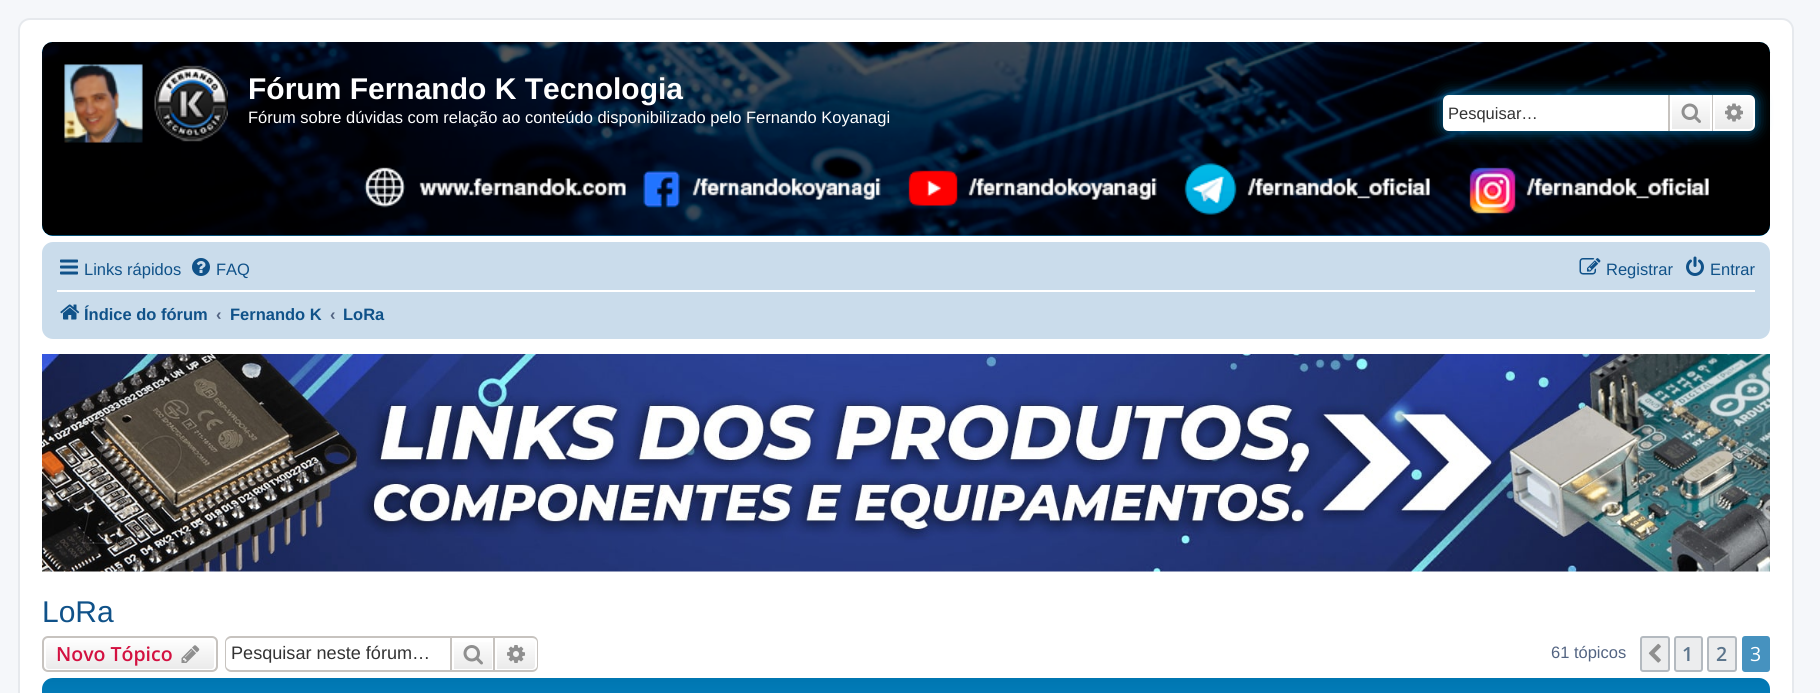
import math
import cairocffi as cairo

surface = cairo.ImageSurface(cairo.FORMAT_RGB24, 1820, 693)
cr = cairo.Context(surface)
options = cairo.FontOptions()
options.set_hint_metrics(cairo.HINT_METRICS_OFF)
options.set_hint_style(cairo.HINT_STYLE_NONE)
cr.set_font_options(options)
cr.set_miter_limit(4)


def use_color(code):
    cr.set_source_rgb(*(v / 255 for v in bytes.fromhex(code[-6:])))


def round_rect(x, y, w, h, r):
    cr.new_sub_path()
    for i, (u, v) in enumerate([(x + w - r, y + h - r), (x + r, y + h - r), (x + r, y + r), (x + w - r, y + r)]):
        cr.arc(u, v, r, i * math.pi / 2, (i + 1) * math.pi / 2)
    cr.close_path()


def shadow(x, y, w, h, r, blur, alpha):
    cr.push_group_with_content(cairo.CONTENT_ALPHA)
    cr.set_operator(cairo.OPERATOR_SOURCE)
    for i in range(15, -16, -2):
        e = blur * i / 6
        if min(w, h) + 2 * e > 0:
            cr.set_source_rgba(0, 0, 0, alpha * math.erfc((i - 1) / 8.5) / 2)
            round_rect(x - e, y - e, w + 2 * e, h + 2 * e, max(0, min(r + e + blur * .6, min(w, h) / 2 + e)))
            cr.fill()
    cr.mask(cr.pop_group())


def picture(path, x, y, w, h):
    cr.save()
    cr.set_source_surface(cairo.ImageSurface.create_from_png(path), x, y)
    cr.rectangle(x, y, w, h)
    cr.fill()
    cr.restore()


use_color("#f5f7fa")
cr.paint()
use_color("#ffffff")
round_rect(19, 19, 1774, 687, 11)
cr.fill_preserve()
use_color("#e6e9ed")
cr.stroke()
use_color("#12a3eb")
round_rect(42, 42, 1728, 194, 11)
cr.fill()
picture("img1.png", 41, 42, 1730, 194)
picture("img2.png", 64, 64, 164, 79)
cr.select_font_face("Liberation Sans", cairo.FONT_SLANT_NORMAL, cairo.FONT_WEIGHT_BOLD)
cr.set_font_size(30)
use_color("#ffffff")
cr.move_to(248, 99)
cr.show_text("Fórum Fernando K Tecnologia")
cr.select_font_face("Liberation Sans")
cr.set_font_size(16.5)
cr.move_to(248, 123)
cr.show_text("Fórum sobre dúvidas com relação ao conteúdo disponibilizado pelo Fernando Koyanagi")
use_color("#0075b0")
shadow(1443, 95, 312, 36, 6, 7.5, 1)
use_color("#ffffff")
cr.new_path()
cr.move_to(1449, 95)
cr.line_to(1668, 95)
cr.line_to(1668, 131)
cr.line_to(1449, 131)
cr.curve_to(1445.5, 131, 1443, 128.5, 1443, 125)
cr.line_to(1443, 101)
cr.curve_to(1443, 97.5, 1445.5, 95, 1449, 95)
cr.close_path()
cr.fill()
use_color("#333333")
cr.move_to(1448, 119)
cr.show_text("Pesquisar…")
gradient = cairo.LinearGradient(1691, 95, 1691, 131)
gradient.add_color_stop_rgba(0, 1, 1, 1, 1)
gradient.add_color_stop_rgba(1, 0.914, 0.914, 0.914, 1)
cr.set_source(gradient)
cr.rectangle(1672, 97, 38, 32)
cr.fill()
cr.rectangle(1671, 96, 40, 34)
use_color("#ffffff")
cr.stroke()
use_color("#c7c3bf")
cr.rectangle(1712, 95, 1, 36)
cr.fill()
cr.rectangle(1668, 95, 2, 36)
cr.fill()
picture("img3.png", 1681, 103, 20, 20)
gradient = cairo.LinearGradient(1734, 95, 1734, 131)
gradient.add_color_stop_rgba(0, 1, 1, 1, 1)
gradient.add_color_stop_rgba(1, 0.914, 0.914, 0.914, 1)
cr.set_source(gradient)
cr.new_path()
cr.move_to(1714, 96)
cr.line_to(1749, 96)
cr.curve_to(1752, 96, 1754, 98, 1754, 101)
cr.line_to(1754, 125)
cr.curve_to(1754, 128, 1752, 130, 1749, 130)
cr.line_to(1714, 130)
cr.close_path()
cr.fill_preserve()
use_color("#ffffff")
cr.stroke()
picture("img4.png", 1725, 103, 18, 19)
use_color("#cadceb")
round_rect(42, 242, 1728, 97, 11)
cr.fill()
picture("img5.png", 60, 259, 18, 16)
use_color("#105289")
cr.move_to(84, 275)
cr.show_text("Links rápidos")
picture("img6.png", 192, 258, 18, 18)
cr.move_to(216, 275)
cr.show_text("FAQ")
picture("img7.png", 1579, 258, 22, 17)
cr.move_to(1606, 275)
cr.show_text("Registrar")
picture("img8.png", 1686, 256, 18, 20)
cr.move_to(1710, 275)
cr.show_text("Entrar")
use_color("#ffffff")
cr.rectangle(57, 290, 1698, 2)
cr.fill()
picture("img9.png", 60, 304, 20, 16)
cr.select_font_face("Liberation Sans", cairo.FONT_SLANT_NORMAL, cairo.FONT_WEIGHT_BOLD)
use_color("#105289")
cr.move_to(84, 320)
cr.show_text("Índice do fórum")
use_color("#536482")
cr.move_to(216, 320)
cr.show_text("‹")
use_color("#105289")
cr.move_to(230, 320)
cr.show_text("Fernando K")
use_color("#536482")
cr.move_to(330, 320)
cr.show_text("‹")
use_color("#105289")
cr.move_to(343, 320)
cr.show_text("LoRa")
picture("img10.png", 42, 354, 1728, 218)
cr.select_font_face("Liberation Sans")
cr.set_font_size(30)
cr.move_to(42, 622)
cr.show_text("LoRa")
cr.save()
round_rect(42, 636, 176, 36, 6)
cr.clip()
gradient = cairo.LinearGradient(130, 638, 130, 671)
gradient.add_color_stop_rgba(0, 1, 1, 1, 1)
gradient.add_color_stop_rgba(1, 0.914, 0.914, 0.914, 1)
cr.set_source(gradient)
cr.rectangle(42, 638, 176, 33)
cr.fill()
cr.restore()
round_rect(45, 639, 170, 31, 4)
use_color("#ffffff")
cr.stroke()
round_rect(43, 637, 174, 34, 5)
use_color("#c7c3bf")
cr.stroke()
cr.select_font_face("Open Sans SemiBold")
cr.set_font_size(19.5)
use_color("#d31141")
cr.move_to(56, 661)
cr.show_text("Novo Tópico")
picture("img11.png", 181, 645, 19, 18)
use_color("#c7c3bf")
cr.set_fill_rule(cairo.FILL_RULE_EVEN_ODD)
cr.new_path()
cr.move_to(231, 636)
cr.line_to(450, 636)
cr.line_to(450, 672)
cr.line_to(231, 672)
cr.curve_to(228, 672, 225, 669, 225, 666)
cr.line_to(225, 642)
cr.curve_to(225, 639, 228, 636, 231, 636)
cr.close_path()
cr.move_to(231, 638)
cr.line_to(450, 638)
cr.line_to(450, 670)
cr.line_to(231, 670)
cr.curve_to(229, 670, 226, 668, 226, 666)
cr.line_to(226, 642)
cr.curve_to(226, 640, 229, 638, 231, 638)
cr.close_path()
cr.fill()
cr.select_font_face("Liberation Sans")
cr.set_font_size(18.1)
use_color("#333333")
cr.move_to(231, 659)
cr.show_text("Pesquisar neste fórum…")
gradient = cairo.LinearGradient(473, 638, 473, 671)
gradient.add_color_stop_rgba(0, 1, 1, 1, 1)
gradient.add_color_stop_rgba(1, 0.914, 0.914, 0.914, 1)
cr.set_source(gradient)
cr.rectangle(454, 642, 38, 27)
cr.fill()
cr.rectangle(451, 637, 43, 34)
use_color("#c7c3bf")
cr.stroke()
picture("img12.png", 463, 645, 20, 20)
gradient = cairo.LinearGradient(516, 638, 516, 671)
gradient.add_color_stop_rgba(0, 1, 1, 1, 1)
gradient.add_color_stop_rgba(1, 0.914, 0.914, 0.914, 1)
cr.set_source(gradient)
cr.new_path()
cr.move_to(496, 639)
cr.line_to(532, 639)
cr.curve_to(534, 639, 536, 641, 536, 643)
cr.line_to(536, 666)
cr.curve_to(536, 668, 534, 670, 532, 670)
cr.line_to(496, 670)
cr.close_path()
cr.fill_preserve()
use_color("#ffffff")
cr.stroke()
use_color("#c7c3bf")
cr.new_path()
cr.move_to(495, 636)
cr.line_to(532, 636)
cr.curve_to(536, 636, 538, 639, 538, 642)
cr.line_to(538, 666)
cr.curve_to(538, 669, 536, 672, 532, 672)
cr.line_to(495, 672)
cr.close_path()
cr.move_to(495, 638)
cr.line_to(532, 638)
cr.curve_to(535, 638, 537, 640, 537, 642)
cr.line_to(537, 666)
cr.curve_to(537, 668, 535, 670, 532, 670)
cr.line_to(495, 670)
cr.close_path()
cr.fill()
picture("img13.png", 507, 645, 18, 18)
cr.set_font_size(16.5)
use_color("#536482")
cr.move_to(1551, 658)
cr.show_text("61 tópicos")
use_color("#ecedee")
round_rect(1641, 637, 28, 34, 2)
cr.fill_preserve()
use_color("#b4bac0")
cr.stroke()
picture("img14.png", 1648, 643, 13, 20)
use_color("#ecedee")
round_rect(1675, 637, 27, 34, 2)
cr.fill_preserve()
use_color("#b4bac0")
cr.stroke()
cr.select_font_face("Open Sans SemiBold")
cr.set_font_size(19.5)
use_color("#5c758c")
cr.move_to(1682, 661)
cr.show_text("1")
use_color("#ecedee")
round_rect(1708, 637, 28, 34, 2)
cr.fill_preserve()
use_color("#b4bac0")
cr.stroke()
use_color("#5c758c")
cr.move_to(1716, 661)
cr.show_text("2")
use_color("#4692bf")
round_rect(1743, 637, 26, 34, 2)
cr.fill_preserve()
cr.stroke()
cr.select_font_face("Open Sans")
use_color("#ffffff")
cr.move_to(1750, 661)
cr.show_text("3")
gradient = cairo.LinearGradient(906, 678, 906, 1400)
gradient.add_color_stop_rgba(0, 0.416, 0.808, 1, 1)
gradient.add_color_stop_rgba(0, 0, 0.463, 0.694, 1)
gradient.add_color_stop_rgba(0.19, 0.071, 0.639, 0.922, 1)
gradient.add_color_stop_rgba(1, 0.071, 0.639, 0.922, 1)
cr.set_source(gradient)
round_rect(42, 678, 1728, 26, 11)
cr.fill()
surface.write_to_png("result.png")
